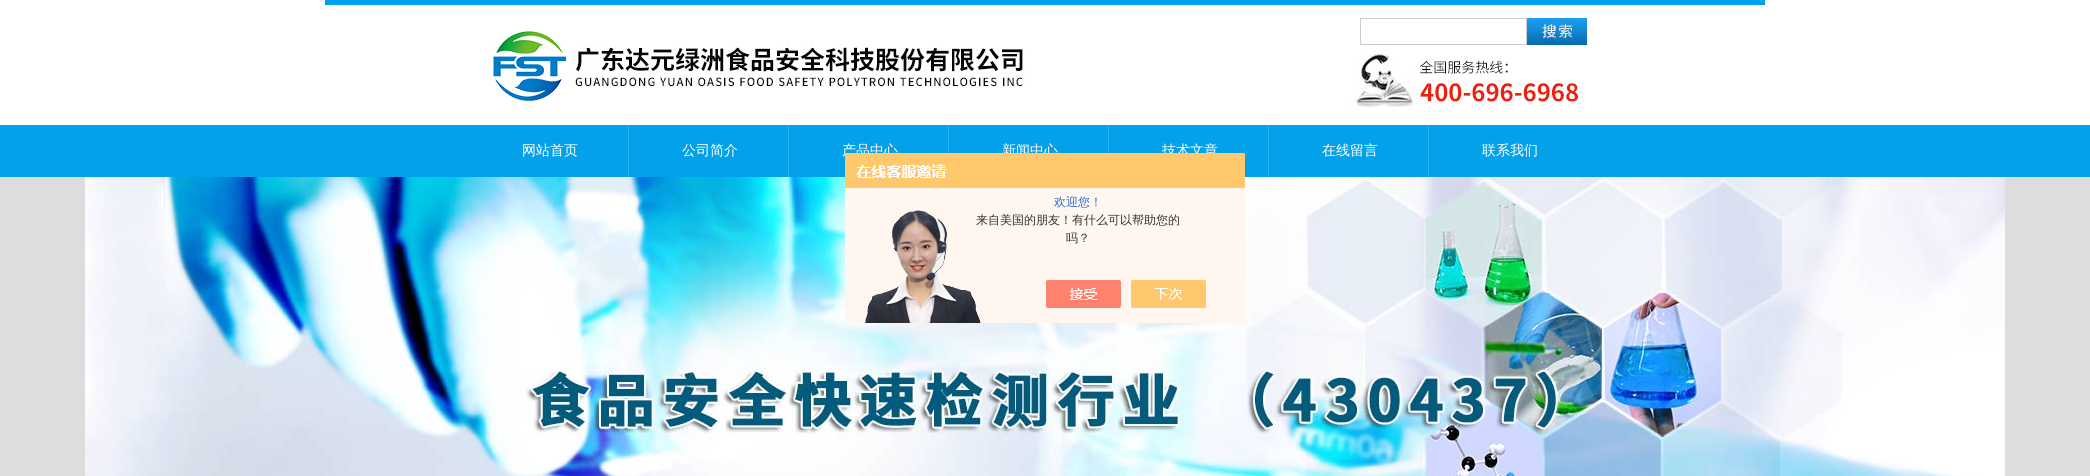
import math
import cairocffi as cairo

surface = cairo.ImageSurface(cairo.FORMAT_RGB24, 2090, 476)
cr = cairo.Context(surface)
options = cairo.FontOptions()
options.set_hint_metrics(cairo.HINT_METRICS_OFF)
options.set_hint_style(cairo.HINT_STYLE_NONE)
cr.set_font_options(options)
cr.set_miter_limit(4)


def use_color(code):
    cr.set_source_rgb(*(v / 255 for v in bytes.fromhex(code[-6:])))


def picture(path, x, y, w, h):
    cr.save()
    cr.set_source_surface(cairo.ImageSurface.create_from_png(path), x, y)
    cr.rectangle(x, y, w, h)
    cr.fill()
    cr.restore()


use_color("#ffffff")
cr.paint()
picture("img1.png", 325, 0, 1440, 107)
cr.rectangle(1360.5, 18.5, 166, 26)
use_color("#cccccc")
cr.set_line_width(1)
cr.stroke()
picture("img2.png", 1527, 18, 60, 27)
use_color("#03a1ea")
cr.rectangle(0, 125, 2090, 52)
cr.fill()
picture("img3.png", 628, 125, 2, 52)
cr.select_font_face("WenQuanYi Zen Hei Medium")
cr.set_font_size(14)
use_color("#ffffff")
cr.move_to(522, 155)
cr.show_text("网站首页")
picture("img3.png", 788, 125, 2, 52)
cr.move_to(682, 155)
cr.show_text("公司简介")
picture("img4.png", 948, 125, 2, 28)
cr.move_to(842, 155)
cr.show_text("产品中心")
picture("img4.png", 1108, 125, 2, 28)
cr.move_to(1002, 155)
cr.show_text("新闻中心")
picture("img3.png", 1268, 125, 2, 52)
cr.move_to(1162, 155)
cr.show_text("技术文章")
picture("img3.png", 1428, 125, 2, 52)
cr.move_to(1322, 155)
cr.show_text("在线留言")
cr.move_to(1482, 155)
cr.show_text("联系我们")
use_color("#dddddd")
cr.rectangle(0, 177, 2090, 299)
cr.fill()
picture("img5.png", 85, 177, 1920, 299)
picture("img6.png", 845, 153, 400, 170)
cr.set_font_size(12)
use_color("#2e6ec6")
cr.move_to(1054, 206)
cr.show_text("欢迎您！")
use_color("#333333")
cr.move_to(976, 224)
cr.show_text("来自美国的朋友！有什么可以帮助您的")
cr.move_to(1066, 242)
cr.show_text("吗？")
surface.write_to_png("result.png")
